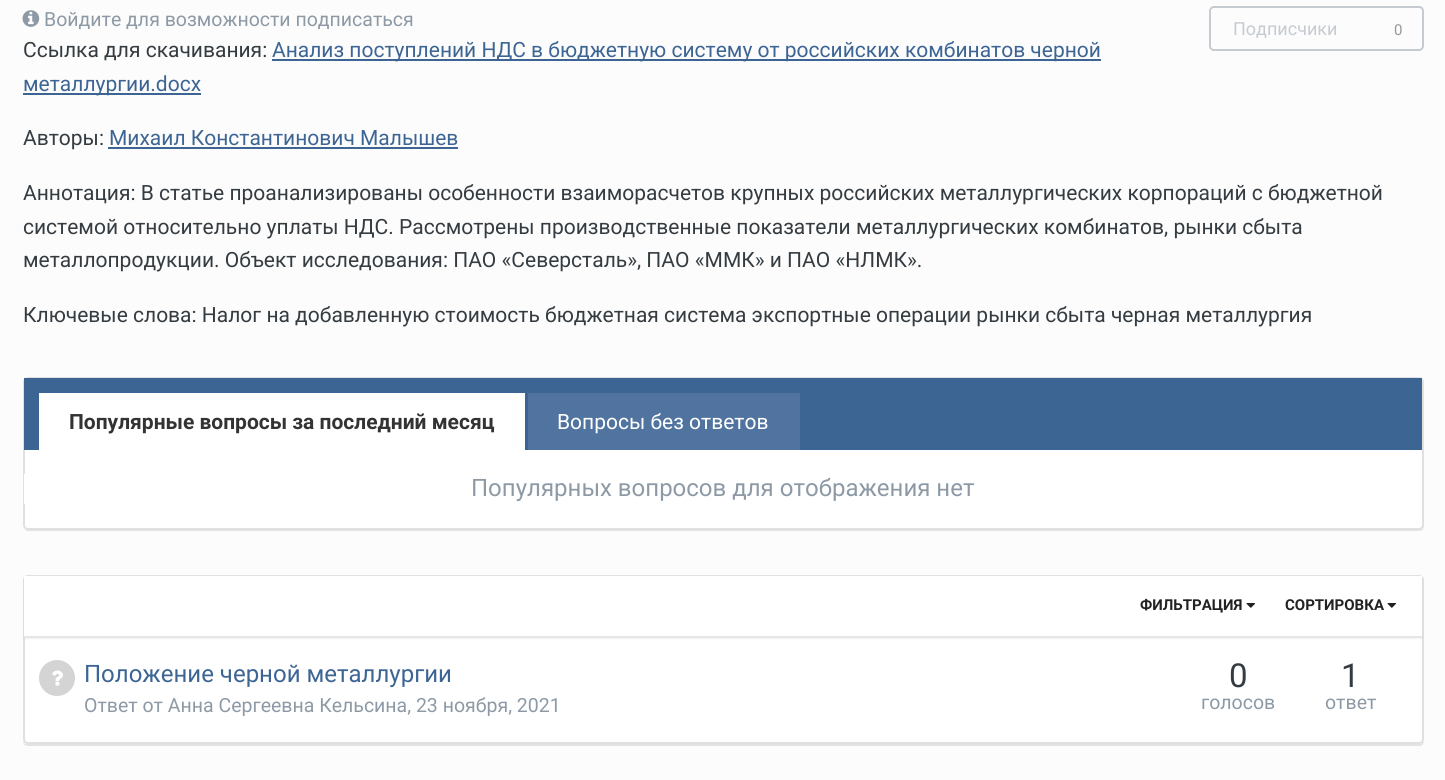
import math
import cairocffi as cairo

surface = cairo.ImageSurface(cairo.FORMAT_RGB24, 1445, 780)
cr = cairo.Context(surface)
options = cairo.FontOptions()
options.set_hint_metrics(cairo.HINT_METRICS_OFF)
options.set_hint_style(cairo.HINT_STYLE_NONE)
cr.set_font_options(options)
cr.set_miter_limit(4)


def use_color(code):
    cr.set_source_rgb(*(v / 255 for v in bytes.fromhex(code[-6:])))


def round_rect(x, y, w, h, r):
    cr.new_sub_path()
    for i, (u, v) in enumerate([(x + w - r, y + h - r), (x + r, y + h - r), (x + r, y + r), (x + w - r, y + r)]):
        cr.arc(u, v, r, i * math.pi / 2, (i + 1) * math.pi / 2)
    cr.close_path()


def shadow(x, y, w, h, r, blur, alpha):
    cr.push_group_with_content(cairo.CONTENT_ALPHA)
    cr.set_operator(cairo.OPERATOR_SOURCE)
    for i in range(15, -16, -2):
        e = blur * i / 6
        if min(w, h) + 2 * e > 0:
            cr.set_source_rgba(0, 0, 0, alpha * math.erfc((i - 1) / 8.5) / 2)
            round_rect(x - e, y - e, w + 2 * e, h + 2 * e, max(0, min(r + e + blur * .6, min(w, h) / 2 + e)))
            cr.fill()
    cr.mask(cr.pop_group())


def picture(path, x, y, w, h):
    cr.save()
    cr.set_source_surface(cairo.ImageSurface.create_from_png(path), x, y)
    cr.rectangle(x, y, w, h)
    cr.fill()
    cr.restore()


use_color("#fcfcfc")
cr.paint()
picture("img1.png", 22, 10, 18, 17)
cr.select_font_face("Roboto")
cr.set_font_size(19.5)
use_color("#8d9aa6")
cr.move_to(44, 26)
cr.show_text("Войдите для возможности подписаться")
round_rect(1210, 7, 213, 43, 4)
use_color("#c5cbd1")
cr.stroke()
cr.set_font_size(18)
cr.move_to(1233, 35)
cr.show_text("Подписчики")
cr.set_font_size(15)
use_color("#989898")
cr.move_to(1394, 35)
cr.show_text("0")
cr.set_font_size(21)
use_color("#353c41")
cr.move_to(23, 57)
cr.show_text("Ссылка для скачивания:")
use_color("#3d6594")
cr.rectangle(272, 59, 829, 2)
cr.fill()
cr.move_to(272, 57)
cr.show_text("Анализ поступлений НДС в бюджетную систему от российских комбинатов черной")
cr.rectangle(23, 93, 178, 2)
cr.fill()
cr.move_to(23, 91)
cr.show_text("металлургии.docx")
use_color("#353c41")
cr.move_to(23, 145)
cr.show_text("Авторы:")
use_color("#3d6594")
cr.move_to(109, 145)
cr.show_text("Михаил Константинович Малышев")
cr.rectangle(108, 147, 350, 2)
cr.fill()
use_color("#353c41")
cr.move_to(23, 200)
cr.show_text("Аннотация: В статье проанализированы особенности взаиморасчетов крупных российских металлургических корпораций с бюджетной")
cr.move_to(23, 234)
cr.show_text("системой относительно уплаты НДС. Рассмотрены производственные показатели металлургических комбинатов, рынки сбыта")
cr.move_to(23, 267)
cr.show_text("металлопродукции. Объект исследования: ПАО «Северсталь», ПАО «ММК» и ПАО «НЛМК».")
cr.move_to(23, 322)
cr.show_text("Ключевые слова: Налог на добавленную стоимость бюджетная система экспортные операции рынки сбыта черная металлургия")
use_color("#e3e3e3")
cr.new_path()
cr.move_to(23, 527)
cr.curve_to(24, 529, 26, 531, 28, 531)
cr.line_to(1419, 531)
cr.curve_to(1422, 531, 1424, 529, 1424, 526)
cr.line_to(1424, 383)
cr.line_to(1423, 381)
cr.line_to(1424, 525)
cr.curve_to(1424, 527, 1421, 530, 1419, 530)
cr.line_to(27, 530)
cr.curve_to(25, 530, 24, 529, 23, 527)
cr.close_path()
cr.fill()
use_color("#ffffff")
round_rect(24, 378, 1399, 151, 4)
cr.fill_preserve()
use_color("#e0e0e0")
cr.stroke()
use_color("#3d6594")
cr.rectangle(24, 378, 1398, 72)
cr.fill()
use_color("#ffffff")
cr.rectangle(39, 393, 486, 57)
cr.fill()
cr.select_font_face("Roboto", cairo.FONT_SLANT_NORMAL, cairo.FONT_WEIGHT_BOLD)
use_color("#333333")
cr.move_to(69, 429)
cr.show_text("Популярные вопросы за последний месяц")
use_color("#50749f")
cr.rectangle(528, 393, 272, 57)
cr.fill()
cr.select_font_face("Roboto")
use_color("#ffffff")
cr.move_to(557, 429)
cr.show_text("Вопросы без ответов")
cr.rectangle(24, 474, 1, 30)
cr.fill()
cr.set_font_size(24)
use_color("#8d9aa6")
cr.move_to(471, 496)
cr.show_text("Популярных вопросов для отображения нет")
use_color("#e3e3e3")
cr.new_path()
cr.move_to(23, 742)
cr.curve_to(23, 744, 25, 746, 28, 746)
cr.line_to(1419, 746)
cr.curve_to(1422, 746, 1424, 744, 1424, 741)
cr.line_to(1424, 581)
cr.line_to(1423, 579)
cr.line_to(1424, 740)
cr.curve_to(1424, 742, 1421, 744, 1419, 744)
cr.line_to(27, 744)
cr.curve_to(25, 744, 24, 743, 23, 742)
cr.close_path()
cr.fill()
use_color("#ffffff")
round_rect(24, 576, 1399, 167, 4)
cr.fill_preserve()
use_color("#e0e0e0")
cr.stroke()
use_color("#000000")
shadow(24, 578, 1398, 61, 0, 1, 0.05)
use_color("#ffffff")
cr.rectangle(24, 576, 1398, 60)
cr.fill()
use_color("#e6e6e6")
cr.rectangle(24, 636, 1398, 2)
cr.fill()
cr.select_font_face("Roboto", cairo.FONT_SLANT_NORMAL, cairo.FONT_WEIGHT_BOLD)
cr.set_font_size(15)
use_color("#222222")
cr.move_to(1140, 610)
cr.show_text("ФИЛЬТРАЦИЯ")
picture("img2.png", 1246, 603, 9, 5)
cr.move_to(1285, 610)
cr.show_text("СОРТИРОВКА")
picture("img2.png", 1387, 603, 9, 5)
use_color("#d4d4d4")
cr.arc(57, 678, 18, 0, 2 * math.pi)
cr.fill()
picture("img3.png", 52, 670, 11, 16)
cr.select_font_face("Roboto")
cr.set_font_size(24)
use_color("#3d6594")
cr.move_to(84, 682)
cr.show_text("Положение черной металлургии")
cr.set_font_size(19.5)
use_color("#8d9aa6")
cr.move_to(84, 712)
cr.show_text("Ответ от Анна Сергеевна Кельсина, 23 ноября, 2021")
cr.set_font_size(33)
use_color("#353c41")
cr.move_to(1229, 687)
cr.show_text("0")
cr.set_font_size(19.5)
use_color("#8d9aa6")
cr.move_to(1201, 709)
cr.show_text("голосов")
cr.set_font_size(33)
use_color("#353c41")
cr.move_to(1341, 687)
cr.show_text("1")
cr.set_font_size(19.5)
use_color("#8d9aa6")
cr.move_to(1325, 709)
cr.show_text("ответ")
surface.write_to_png("result.png")
